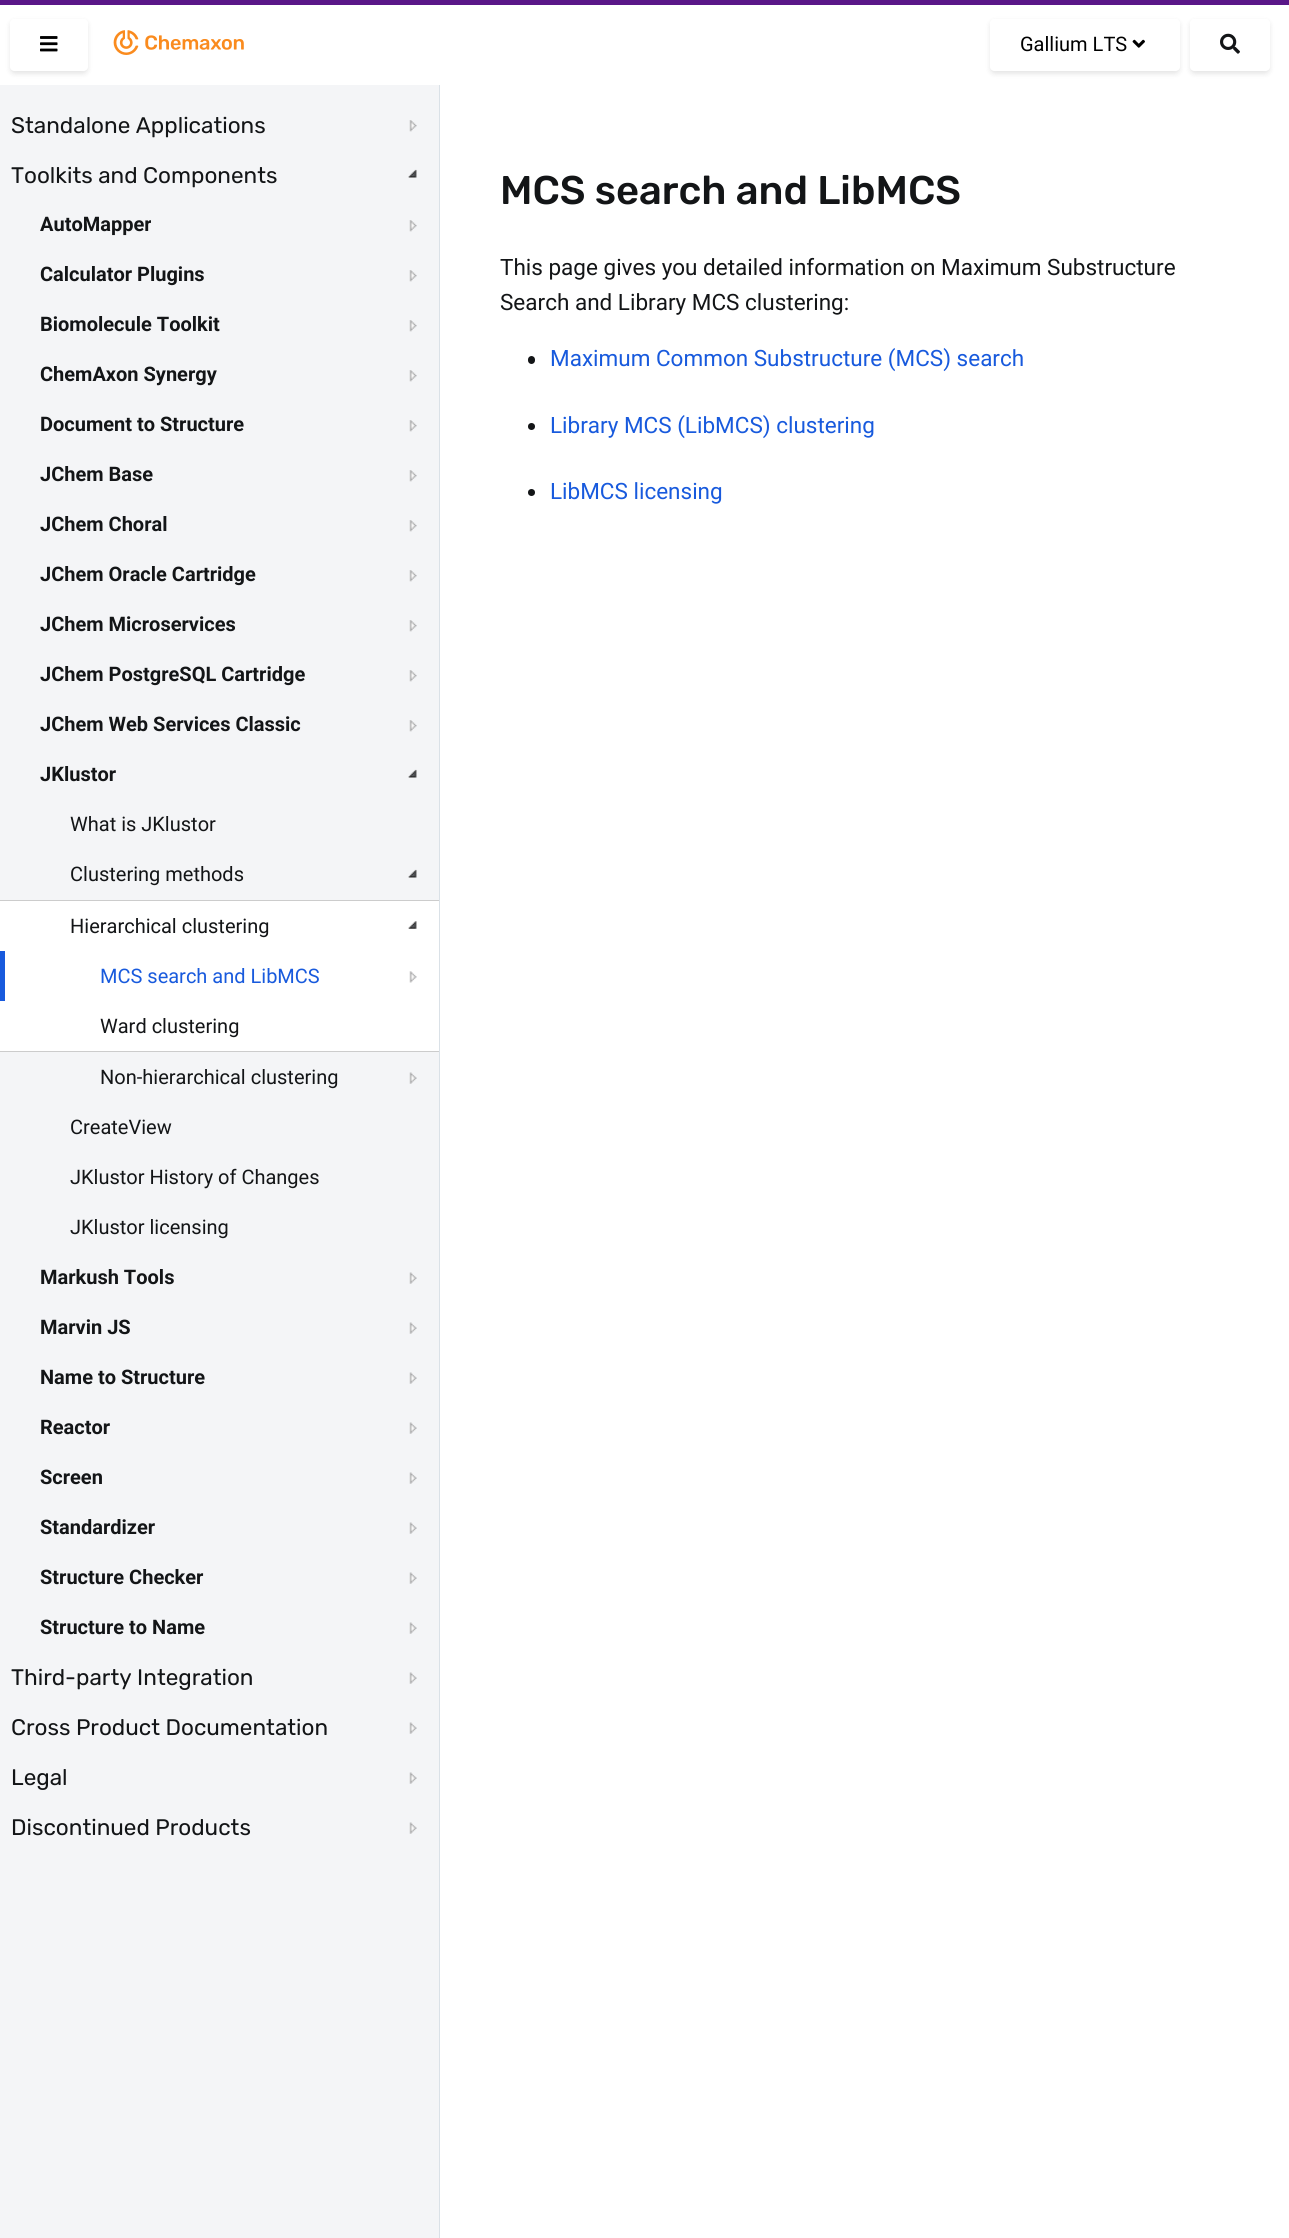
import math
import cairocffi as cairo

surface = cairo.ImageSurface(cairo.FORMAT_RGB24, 1289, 2238)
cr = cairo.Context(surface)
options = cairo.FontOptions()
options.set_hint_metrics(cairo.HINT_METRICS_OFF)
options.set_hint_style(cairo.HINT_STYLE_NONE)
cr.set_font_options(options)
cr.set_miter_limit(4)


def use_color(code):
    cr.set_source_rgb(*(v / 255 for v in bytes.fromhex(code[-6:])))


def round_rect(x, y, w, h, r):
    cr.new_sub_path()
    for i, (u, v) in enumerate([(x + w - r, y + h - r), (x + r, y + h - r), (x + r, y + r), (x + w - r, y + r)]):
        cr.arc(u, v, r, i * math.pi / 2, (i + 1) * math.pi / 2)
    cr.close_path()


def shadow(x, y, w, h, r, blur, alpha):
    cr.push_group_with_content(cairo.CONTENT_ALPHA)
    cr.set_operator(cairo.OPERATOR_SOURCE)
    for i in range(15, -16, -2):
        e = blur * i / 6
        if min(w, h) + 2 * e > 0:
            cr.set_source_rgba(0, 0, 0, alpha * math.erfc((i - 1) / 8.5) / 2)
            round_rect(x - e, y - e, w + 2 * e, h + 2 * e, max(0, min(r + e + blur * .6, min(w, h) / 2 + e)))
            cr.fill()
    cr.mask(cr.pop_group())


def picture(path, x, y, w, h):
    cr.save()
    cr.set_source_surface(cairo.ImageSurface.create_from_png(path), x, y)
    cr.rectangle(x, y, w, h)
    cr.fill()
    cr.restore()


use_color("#ffffff")
cr.paint()
use_color("#5a1788")
cr.rectangle(0, 0, 1289, 5)
cr.fill()
use_color("#dae1e7")
cr.rectangle(439, 80, 1, 2158)
cr.fill()
use_color("#ffffff")
cr.rectangle(439, 80, 1, 5)
cr.fill()
cr.save()
cr.set_fill_rule(cairo.FILL_RULE_EVEN_ODD)
cr.new_path()
cr.move_to(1, 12)
cr.line_to(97, 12)
cr.line_to(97, 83)
cr.line_to(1, 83)
cr.close_path()
cr.move_to(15, 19)
cr.line_to(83, 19)
cr.curve_to(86, 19, 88, 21, 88, 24)
cr.line_to(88, 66)
cr.curve_to(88, 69, 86, 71, 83, 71)
cr.line_to(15, 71)
cr.curve_to(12, 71, 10, 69, 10, 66)
cr.line_to(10, 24)
cr.curve_to(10, 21, 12, 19, 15, 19)
cr.close_path()
cr.clip()
use_color("#000000")
shadow(10, 21, 78, 53, 5, 2.5, 0.1)
cr.restore()
picture("img1.png", 40, 36, 18, 16)
picture("img2.png", 113, 30, 131, 25)
cr.save()
cr.set_fill_rule(cairo.FILL_RULE_EVEN_ODD)
cr.new_path()
cr.move_to(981, 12)
cr.line_to(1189, 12)
cr.line_to(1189, 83)
cr.line_to(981, 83)
cr.close_path()
cr.move_to(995, 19)
cr.line_to(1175, 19)
cr.curve_to(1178, 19, 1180, 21, 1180, 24)
cr.line_to(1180, 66)
cr.curve_to(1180, 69, 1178, 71, 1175, 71)
cr.line_to(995, 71)
cr.curve_to(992, 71, 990, 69, 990, 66)
cr.line_to(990, 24)
cr.curve_to(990, 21, 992, 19, 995, 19)
cr.close_path()
cr.clip()
use_color("#000000")
shadow(990, 21, 190, 53, 5, 2.5, 0.1)
cr.restore()
cr.select_font_face("Roboto")
cr.set_font_size(20)
use_color("#000000")
cr.move_to(1020, 51)
cr.show_text("Gallium LTS")
picture("img3.png", 1132, 39, 13, 9)
cr.save()
cr.set_fill_rule(cairo.FILL_RULE_EVEN_ODD)
cr.new_path()
cr.move_to(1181, 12)
cr.line_to(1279, 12)
cr.line_to(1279, 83)
cr.line_to(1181, 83)
cr.close_path()
cr.move_to(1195, 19)
cr.line_to(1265, 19)
cr.curve_to(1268, 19, 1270, 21, 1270, 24)
cr.line_to(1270, 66)
cr.curve_to(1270, 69, 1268, 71, 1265, 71)
cr.line_to(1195, 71)
cr.curve_to(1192, 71, 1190, 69, 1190, 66)
cr.line_to(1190, 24)
cr.curve_to(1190, 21, 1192, 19, 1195, 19)
cr.close_path()
cr.clip()
use_color("#000000")
shadow(1190, 21, 80, 53, 5, 2.5, 0.1)
cr.restore()
picture("img4.png", 1220, 33, 20, 21)
use_color("#f4f5f7")
cr.rectangle(0, 85, 439, 2153)
cr.fill()
cr.select_font_face("Rubik")
cr.set_font_size(22.5)
use_color("#131517")
cr.move_to(11, 133)
cr.show_text("Standalone Applications")
picture("img5.png", 409, 120, 8, 12)
cr.move_to(11, 183)
cr.show_text("Toolkits and Components")
picture("img6.png", 408, 169, 9, 9)
cr.save()
cr.rectangle(40, 210, 111, 30)
cr.clip()
cr.select_font_face("Roboto", cairo.FONT_SLANT_NORMAL, cairo.FONT_WEIGHT_BOLD)
cr.set_font_size(20)
cr.move_to(40, 231)
cr.show_text("AutoMapper")
cr.restore()
picture("img5.png", 409, 220, 8, 12)
cr.select_font_face("Roboto", cairo.FONT_SLANT_NORMAL, cairo.FONT_WEIGHT_BOLD)
cr.set_font_size(20)
cr.move_to(40, 281)
cr.show_text("Calculator Plugins")
picture("img5.png", 409, 270, 8, 12)
cr.move_to(40, 331)
cr.show_text("Biomolecule Toolkit")
picture("img5.png", 409, 320, 8, 12)
cr.move_to(40, 381)
cr.show_text("ChemAxon Synergy")
picture("img5.png", 409, 370, 8, 12)
cr.move_to(40, 431)
cr.show_text("Document to Structure")
picture("img5.png", 409, 420, 8, 12)
cr.move_to(40, 481)
cr.show_text("JChem Base")
picture("img5.png", 409, 470, 8, 12)
cr.move_to(40, 531)
cr.show_text("JChem Choral")
picture("img5.png", 409, 520, 8, 12)
cr.move_to(40, 581)
cr.show_text("JChem Oracle Cartridge")
picture("img5.png", 409, 570, 8, 12)
cr.move_to(40, 631)
cr.show_text("JChem Microservices")
picture("img5.png", 409, 620, 8, 12)
cr.move_to(40, 681)
cr.show_text("JChem PostgreSQL Cartridge")
picture("img5.png", 409, 670, 8, 12)
cr.move_to(40, 731)
cr.show_text("JChem Web Services Classic")
picture("img5.png", 409, 720, 8, 12)
cr.move_to(40, 781)
cr.show_text("JKlustor")
picture("img6.png", 408, 769, 9, 9)
cr.select_font_face("Roboto")
cr.move_to(70, 831)
cr.show_text("What is JKlustor")
cr.move_to(70, 881)
cr.show_text("Clustering methods")
picture("img6.png", 408, 869, 9, 9)
use_color("#ffffff")
cr.rectangle(0, 901, 439, 150)
cr.fill()
use_color("#cccccc")
cr.rectangle(0, 900, 439, 1)
cr.fill()
cr.rectangle(0, 1051, 439, 1)
cr.fill()
use_color("#131517")
cr.move_to(70, 933)
cr.show_text("Hierarchical clustering")
picture("img7.png", 408, 921, 9, 8)
use_color("#185add")
cr.rectangle(0, 951, 5, 50)
cr.fill()
cr.move_to(100, 983)
cr.show_text("MCS search and LibMCS")
picture("img8.png", 409, 971, 8, 12)
use_color("#131517")
cr.move_to(100, 1033)
cr.show_text("Ward clustering")
cr.move_to(100, 1084)
cr.show_text("Non-hierarchical clustering")
picture("img9.png", 409, 1072, 8, 12)
cr.move_to(70, 1134)
cr.show_text("CreateView")
cr.move_to(70, 1184)
cr.show_text("JKlustor History of Changes")
cr.move_to(70, 1234)
cr.show_text("JKlustor licensing")
cr.select_font_face("Roboto", cairo.FONT_SLANT_NORMAL, cairo.FONT_WEIGHT_BOLD)
cr.move_to(40, 1284)
cr.show_text("Markush Tools")
picture("img9.png", 409, 1272, 8, 12)
cr.move_to(40, 1334)
cr.show_text("Marvin JS")
picture("img9.png", 409, 1322, 8, 12)
cr.move_to(40, 1384)
cr.show_text("Name to Structure")
picture("img9.png", 409, 1372, 8, 12)
cr.move_to(40, 1434)
cr.show_text("Reactor")
picture("img9.png", 409, 1422, 8, 12)
cr.move_to(40, 1484)
cr.show_text("Screen")
picture("img9.png", 409, 1472, 8, 12)
cr.move_to(40, 1534)
cr.show_text("Standardizer")
picture("img9.png", 409, 1522, 8, 12)
cr.move_to(40, 1584)
cr.show_text("Structure Checker")
picture("img9.png", 409, 1572, 8, 12)
cr.move_to(40, 1634)
cr.show_text("Structure to Name")
picture("img9.png", 409, 1622, 8, 12)
cr.select_font_face("Rubik")
cr.set_font_size(22.5)
cr.move_to(11, 1685)
cr.show_text("Third-party Integration")
picture("img9.png", 409, 1672, 8, 12)
cr.move_to(11, 1735)
cr.show_text("Cross Product Documentation")
picture("img9.png", 409, 1722, 8, 12)
cr.move_to(11, 1785)
cr.show_text("Legal")
picture("img9.png", 409, 1772, 8, 12)
cr.move_to(11, 1835)
cr.show_text("Discontinued Products")
picture("img9.png", 409, 1822, 8, 12)
cr.select_font_face("Rubik Medium")
cr.set_font_size(40)
cr.move_to(500, 204)
cr.show_text("MCS search and LibMCS")
cr.select_font_face("Roboto")
cr.set_font_size(22.5)
cr.move_to(500, 275)
cr.show_text("This page gives you detailed information on Maximum Substructure")
cr.move_to(500, 310)
cr.show_text("Search and Library MCS clustering:")
round_rect(528, 356, 7, 8, 3.5)
cr.fill()
use_color("#185add")
cr.move_to(550, 366)
cr.show_text("Maximum Common Substructure (MCS) search")
use_color("#131517")
cr.new_path()
cr.arc(531.5, 426.5, 3.5, 0, 2 * math.pi)
cr.fill()
use_color("#185add")
cr.move_to(550, 433)
cr.show_text("Library MCS (LibMCS) clustering")
use_color("#131517")
cr.new_path()
cr.arc(531.5, 492.5, 3.5, 0, 2 * math.pi)
cr.fill()
use_color("#185add")
cr.move_to(550, 499)
cr.show_text("LibMCS licensing")
surface.write_to_png("result.png")
